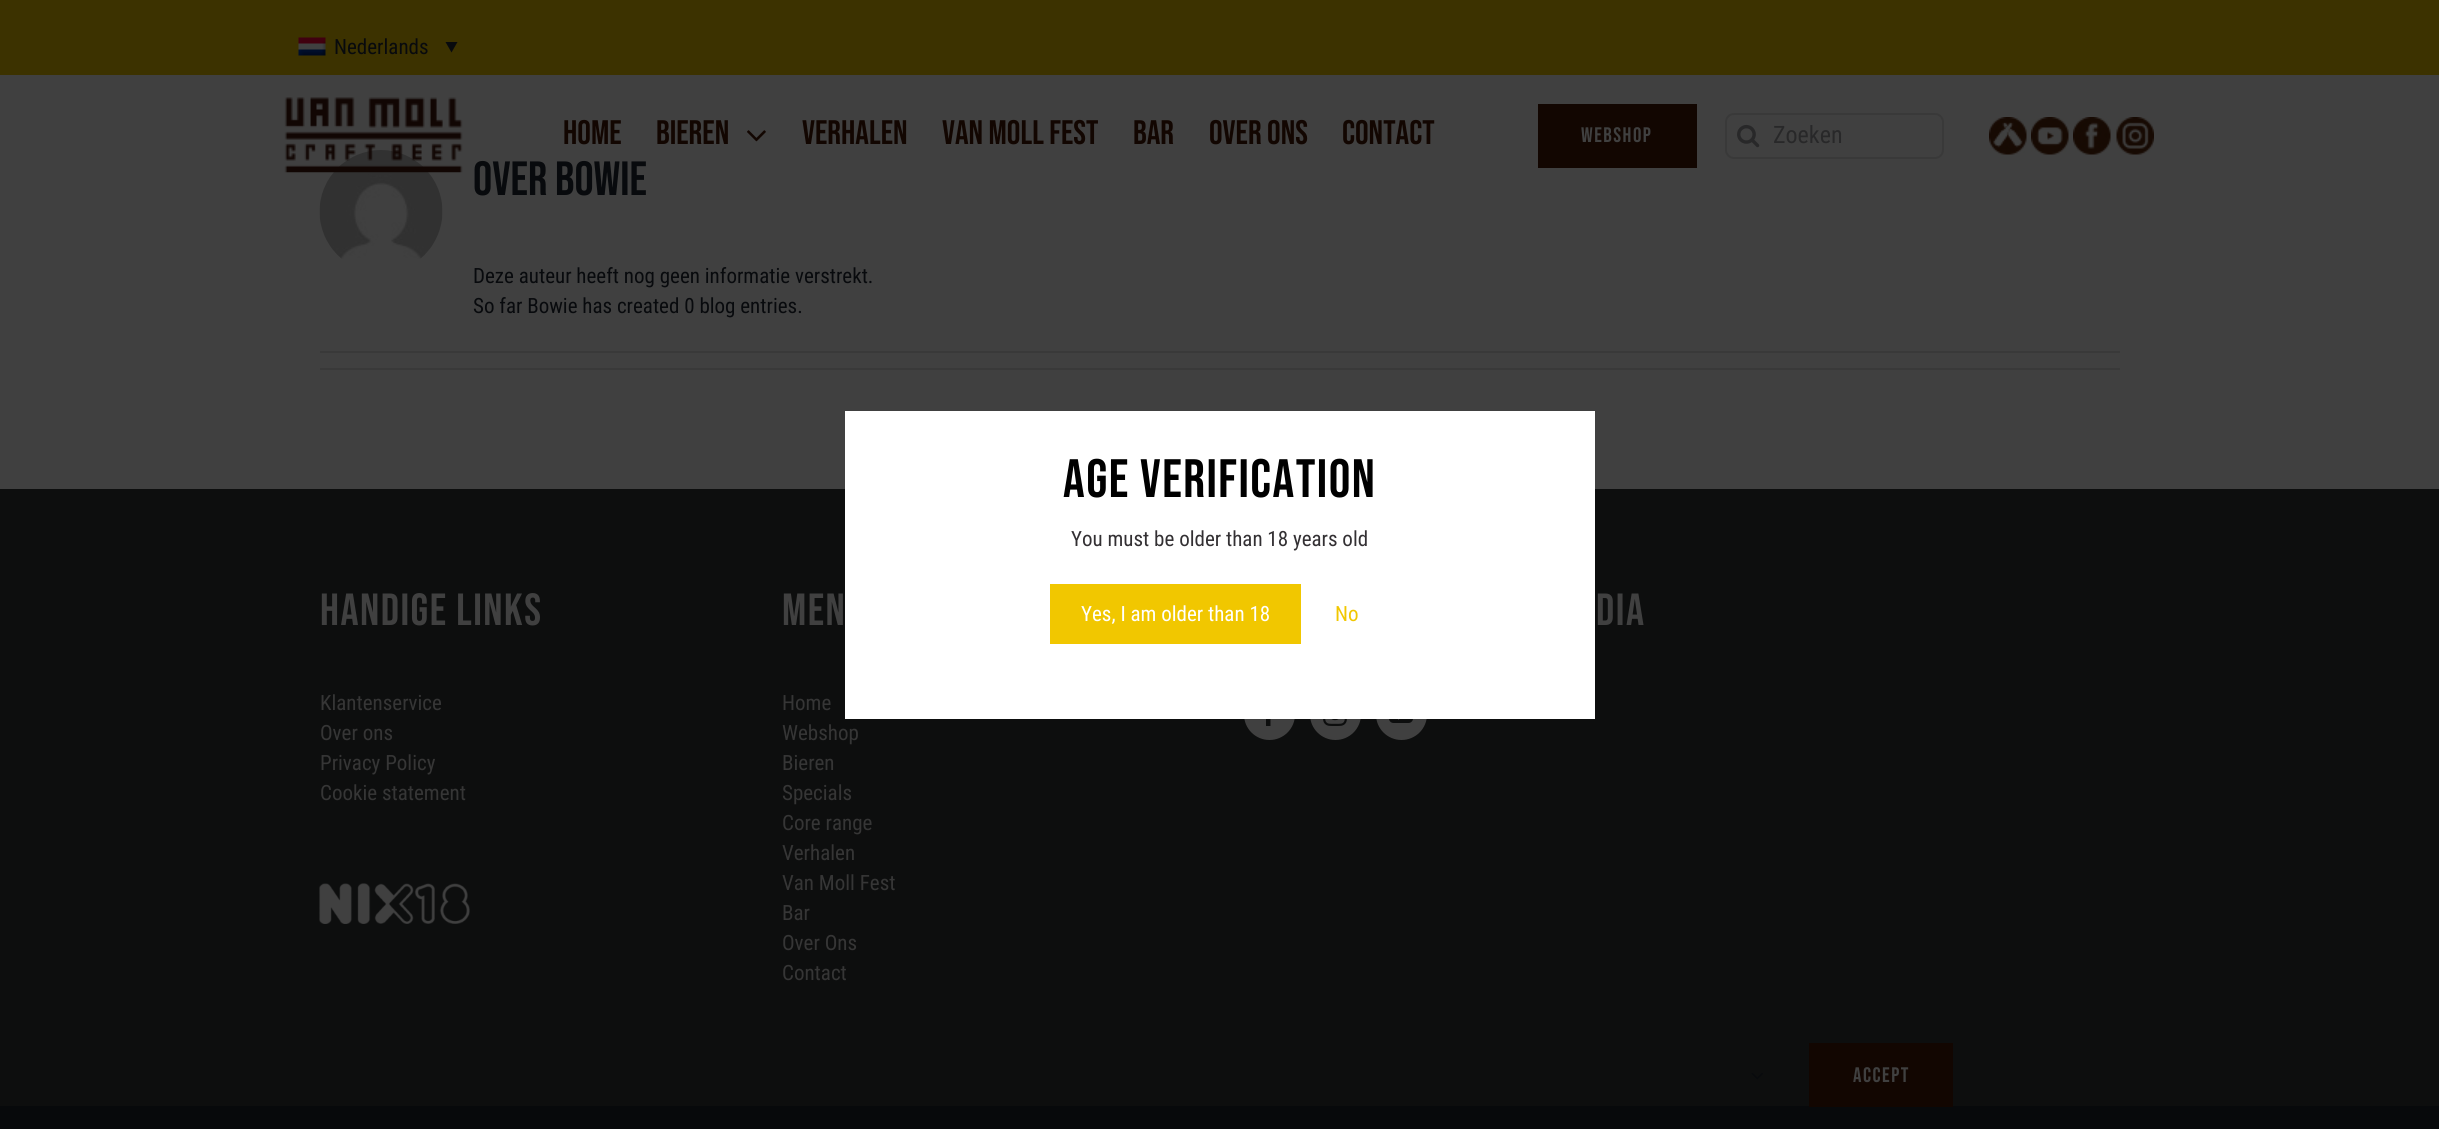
import math
import cairocffi as cairo

surface = cairo.ImageSurface(cairo.FORMAT_RGB24, 2439, 1129)
cr = cairo.Context(surface)
options = cairo.FontOptions()
options.set_hint_metrics(cairo.HINT_METRICS_OFF)
options.set_hint_style(cairo.HINT_STYLE_NONE)
cr.set_font_options(options)
cr.set_miter_limit(4)


def use_color(code):
    cr.set_source_rgb(*(v / 255 for v in bytes.fromhex(code[-6:])))


def spaced_text(x, y, s, letter, word):
    cr.move_to(x, y)
    for ch in s:
        cr.show_text(ch)
        cr.rel_move_to(letter + word * (ch == ' '), 0)


def round_rect(x, y, w, h, r):
    cr.new_sub_path()
    for i, (u, v) in enumerate([(x + w - r, y + h - r), (x + r, y + h - r), (x + r, y + r), (x + w - r, y + r)]):
        cr.arc(u, v, r, i * math.pi / 2, (i + 1) * math.pi / 2)
    cr.close_path()


def picture(path, x, y, w, h):
    cr.save()
    cr.set_source_surface(cairo.ImageSurface.create_from_png(path), x, y)
    cr.rectangle(x, y, w, h)
    cr.fill()
    cr.restore()


use_color("#404040")
cr.paint()
use_color("#3c3200")
cr.rectangle(0, 0, 2439, 75)
cr.fill()
picture("img1.png", 298, 37, 28, 19)
cr.select_font_face("Roboto Condensed")
cr.set_font_size(21)
use_color("#080a0d")
cr.move_to(334, 54)
cr.show_text("Nederlands")
cr.new_path()
cr.move_to(445.5, 42)
cr.line_to(457.5, 42)
cr.line_to(451.5, 52.5)
cr.close_path()
cr.fill()
picture("img9.png", 319, 150, 124, 109)
picture("img2.png", 284, 97, 179, 76)
cr.select_font_face("Bebas Neue")
cr.set_font_size(34)
use_color("#120601")
cr.move_to(563, 144)
cr.show_text("Home")
cr.move_to(656, 144)
cr.show_text("Bieren")
picture("img3.png", 747, 130, 19, 12)
cr.move_to(802, 144)
cr.show_text("Verhalen")
cr.move_to(942, 144)
cr.show_text("Van Moll Fest")
cr.move_to(1133, 144)
cr.show_text("Bar")
cr.move_to(1209, 144)
cr.show_text("Over Ons")
cr.move_to(1342, 144)
cr.show_text("Contact")
cr.rectangle(1538, 104, 159, 64)
cr.fill()
cr.set_font_size(21)
use_color("#404040")
spaced_text(1581, 142, "WEBSHOP", 1.5, 0)
round_rect(1726, 114, 217, 44, 8)
use_color("#393939")
cr.stroke()
picture("img4.png", 1737, 124, 23, 24)
cr.select_font_face("Roboto Condensed")
cr.set_font_size(24)
use_color("#282829")
cr.move_to(1773, 143)
cr.show_text("Zoeken")
picture("img5.png", 1989, 117, 38, 38)
picture("img6.png", 2031, 117, 38, 38)
picture("img7.png", 2073, 117, 38, 38)
picture("img8.png", 2116, 117, 38, 38)
cr.select_font_face("Bebas Neue")
cr.set_font_size(48)
use_color("#080a0d")
cr.move_to(473, 195)
cr.show_text("Over Bowie")
cr.select_font_face("Roboto Condensed")
cr.set_font_size(21)
cr.move_to(473, 283)
cr.show_text("Deze auteur heeft nog geen informatie verstrekt.")
cr.move_to(473, 313)
cr.show_text("So far Bowie has created 0 blog entries.")
use_color("#393939")
cr.rectangle(320, 351, 1800, 2)
cr.fill()
cr.rectangle(320, 368, 1800, 2)
cr.fill()
use_color("#0d0e0e")
cr.rectangle(0, 489, 2439, 617)
cr.fill()
cr.select_font_face("Bebas Neue")
cr.set_font_size(45)
use_color("#404040")
spaced_text(320, 625, "HANDIGE LINKS", 1.5, 0)
cr.select_font_face("Roboto Condensed")
cr.set_font_size(21)
use_color("#363636")
cr.move_to(320, 710)
cr.show_text("Klantenservice")
cr.move_to(320, 740)
cr.show_text("Over ons")
cr.move_to(320, 770)
cr.show_text("Privacy Policy")
cr.move_to(320, 800)
cr.show_text("Cookie statement")
picture("img10.png", 319, 883, 151, 41)
cr.select_font_face("Bebas Neue")
cr.set_font_size(45)
use_color("#404040")
spaced_text(782, 625, "MEN", 1.5, 0)
cr.select_font_face("Roboto Condensed")
cr.set_font_size(21)
use_color("#363636")
cr.move_to(782, 710)
cr.show_text("Home")
cr.move_to(782, 740)
cr.show_text("Webshop")
cr.move_to(782, 770)
cr.show_text("Bieren")
cr.move_to(782, 800)
cr.show_text("Specials")
cr.move_to(782, 830)
cr.show_text("Core range")
cr.move_to(782, 860)
cr.show_text("Verhalen")
cr.move_to(782, 890)
cr.show_text("Van Moll Fest")
cr.move_to(782, 920)
cr.show_text("Bar")
cr.move_to(782, 950)
cr.show_text("Over Ons")
cr.move_to(782, 980)
cr.show_text("Contact")
cr.select_font_face("Bebas Neue")
cr.set_font_size(45)
use_color("#404040")
spaced_text(1596, 625, "DIA", 1.5, 0)
cr.new_path()
cr.arc(1269.5, 714.5, 24.5, 0, 2 * math.pi)
cr.fill_preserve()
cr.stroke()
picture("img11.png", 1266, 719, 5, 7)
cr.arc(1335.5, 714.5, 24.5, 0, 2 * math.pi)
cr.fill_preserve()
cr.stroke()
picture("img12.png", 1323, 719, 24, 7)
cr.arc(1401.5, 714.5, 24.5, 0, 2 * math.pi)
cr.fill_preserve()
cr.stroke()
picture("img13.png", 1389, 719, 24, 4)
use_color("#07090b")
cr.rectangle(0, 1106, 2439, 23)
cr.fill()
use_color("#ffffff")
cr.rectangle(845, 411, 750, 308)
cr.fill()
cr.set_font_size(54)
use_color("#000000")
spaced_text(1063, 497, "Age verification", 1.5, 0)
cr.select_font_face("Roboto Condensed")
cr.set_font_size(21)
use_color("#333033")
cr.move_to(1071, 546)
cr.show_text("You must be older than 18 years old")
use_color("#f1c700")
cr.rectangle(1050, 584, 251, 60)
cr.fill()
use_color("#ffffff")
cr.move_to(1081, 621)
cr.show_text("Yes, I am older than 18")
use_color("#f1c700")
cr.move_to(1335, 621)
cr.show_text("No")
picture("img14.png", 1751, 1073, 12, 7)
use_color("#120601")
cr.rectangle(1809, 1043, 144, 64)
cr.fill()
cr.select_font_face("Bebas Neue")
use_color("#404040")
spaced_text(1853, 1082, "Accept", 1.5, 0)
surface.write_to_png("result.png")
